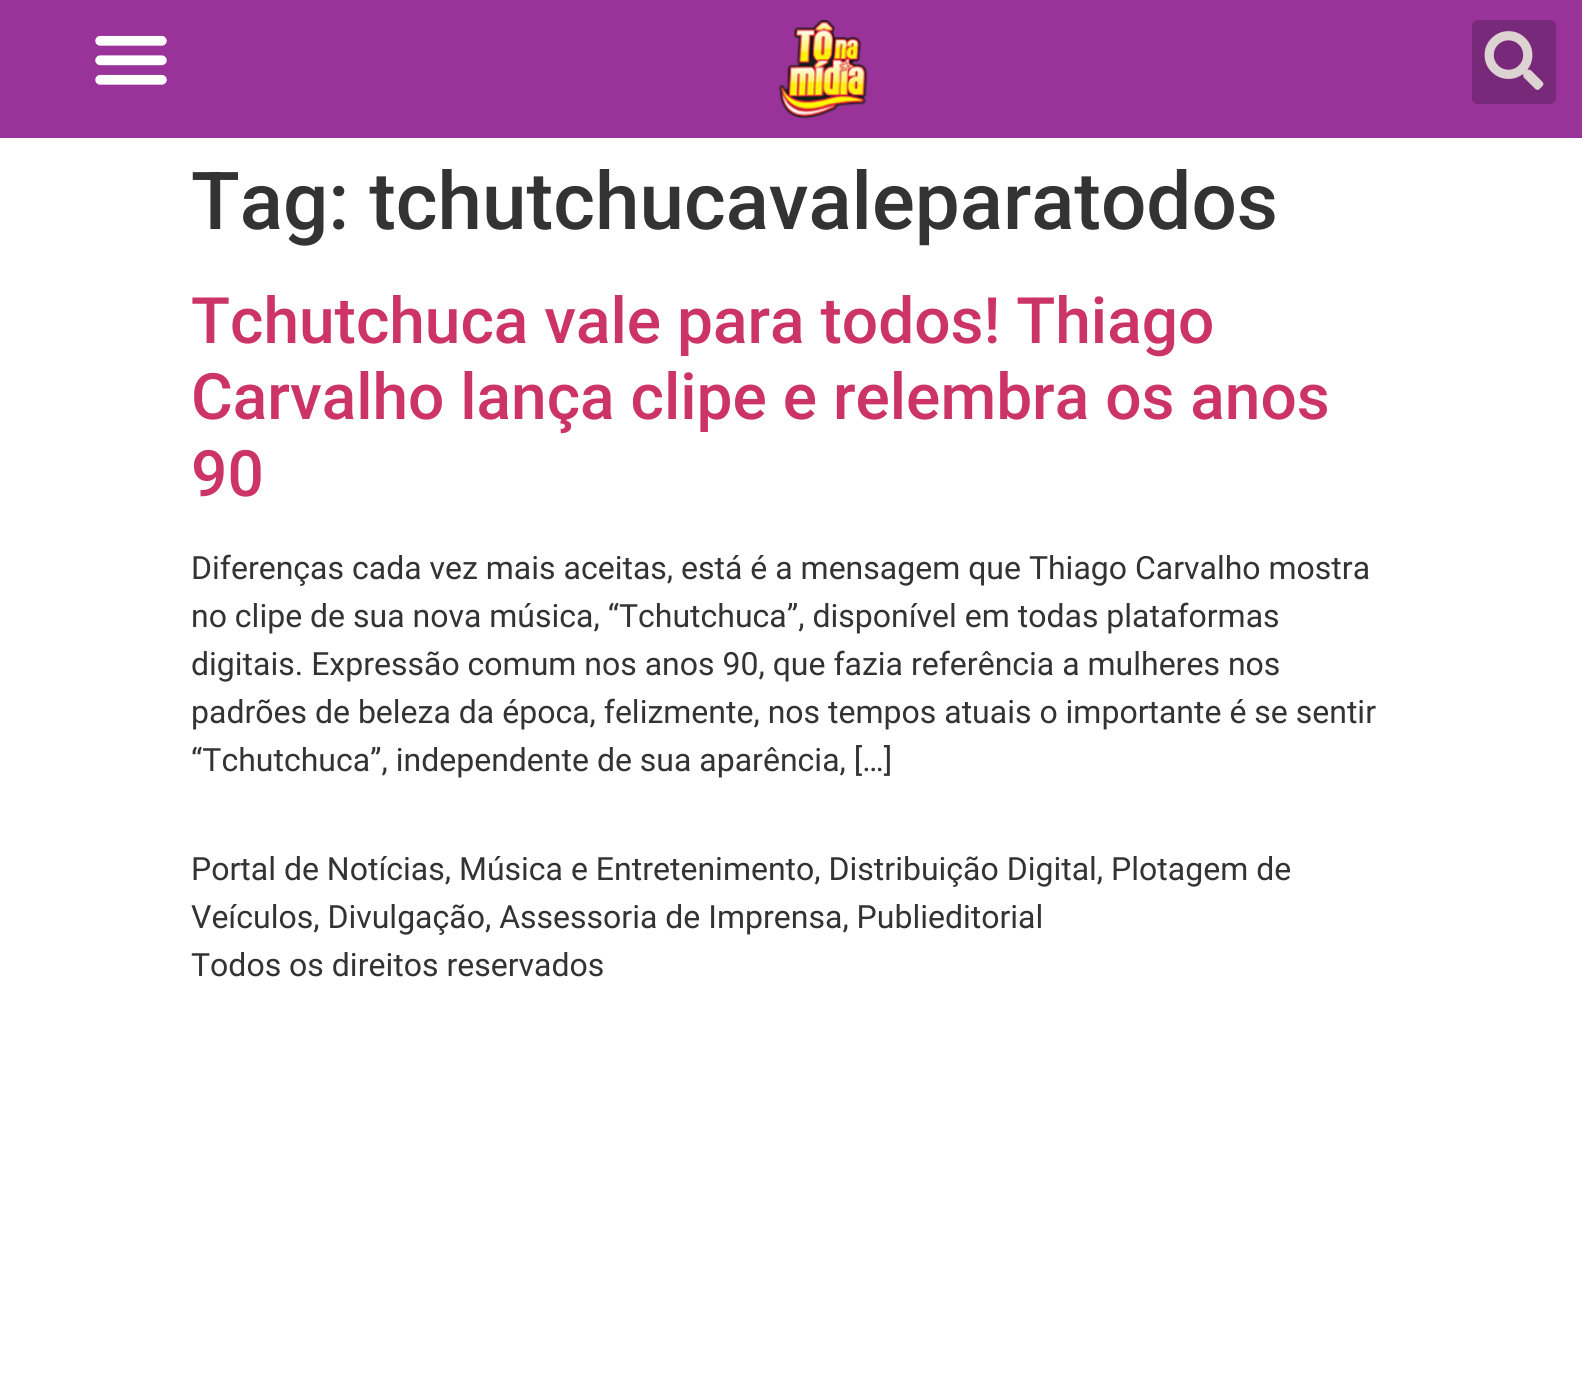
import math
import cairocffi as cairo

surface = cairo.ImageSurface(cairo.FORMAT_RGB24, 1582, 1396)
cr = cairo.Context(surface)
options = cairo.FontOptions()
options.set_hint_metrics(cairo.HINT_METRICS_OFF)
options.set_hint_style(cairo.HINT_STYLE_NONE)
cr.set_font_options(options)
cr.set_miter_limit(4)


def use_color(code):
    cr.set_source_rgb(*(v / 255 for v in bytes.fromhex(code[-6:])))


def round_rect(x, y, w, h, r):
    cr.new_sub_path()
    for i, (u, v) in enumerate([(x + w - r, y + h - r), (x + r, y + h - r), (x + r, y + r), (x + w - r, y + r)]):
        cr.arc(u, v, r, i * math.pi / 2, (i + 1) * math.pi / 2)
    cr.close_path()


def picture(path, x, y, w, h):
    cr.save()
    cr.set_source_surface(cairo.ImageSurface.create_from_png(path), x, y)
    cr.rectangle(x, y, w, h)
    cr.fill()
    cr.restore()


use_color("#ffffff")
cr.paint()
use_color("#993399")
cr.rectangle(0, 0, 1582, 138)
cr.fill()
picture("img1.png", 95, 35, 72, 50)
picture("img2.png", 778, 20, 90, 99)
use_color("#792979")
round_rect(1472, 20, 84, 84, 6)
cr.fill()
picture("img3.png", 1484, 31, 60, 59)
cr.select_font_face("Roboto Medium")
cr.set_font_size(80)
use_color("#333333")
cr.move_to(191, 229)
cr.show_text("Tag: tchutchucavaleparatodos")
cr.set_font_size(64)
use_color("#cc3366")
cr.move_to(191, 343)
cr.show_text("Tchutchuca vale para todos! Thiago")
cr.move_to(191, 419)
cr.show_text("Carvalho lança clipe e relembra os anos")
cr.move_to(191, 496)
cr.show_text("90")
cr.select_font_face("Roboto")
cr.set_font_size(32)
use_color("#333333")
cr.move_to(191, 579)
cr.show_text("Diferenças cada vez mais aceitas, está é a mensagem que Thiago Carvalho mostra")
cr.move_to(191, 627)
cr.show_text("no clipe de sua nova música, “Tchutchuca”, disponível em todas plataformas")
cr.move_to(191, 675)
cr.show_text("digitais. Expressão comum nos anos 90, que fazia referência a mulheres nos")
cr.move_to(191, 723)
cr.show_text("padrões de beleza da época, felizmente, nos tempos atuais o importante é se sentir")
cr.move_to(191, 771)
cr.show_text("“Tchutchuca”, independente de sua aparência, […]")
cr.move_to(191, 880)
cr.show_text("Portal de Notícias, Música e Entretenimento, Distribuição Digital, Plotagem de")
cr.move_to(191, 928)
cr.show_text("Veículos, Divulgação, Assessoria de Imprensa, Publieditorial")
cr.move_to(191, 976)
cr.show_text("Todos os direitos reservados")
surface.write_to_png("result.png")
